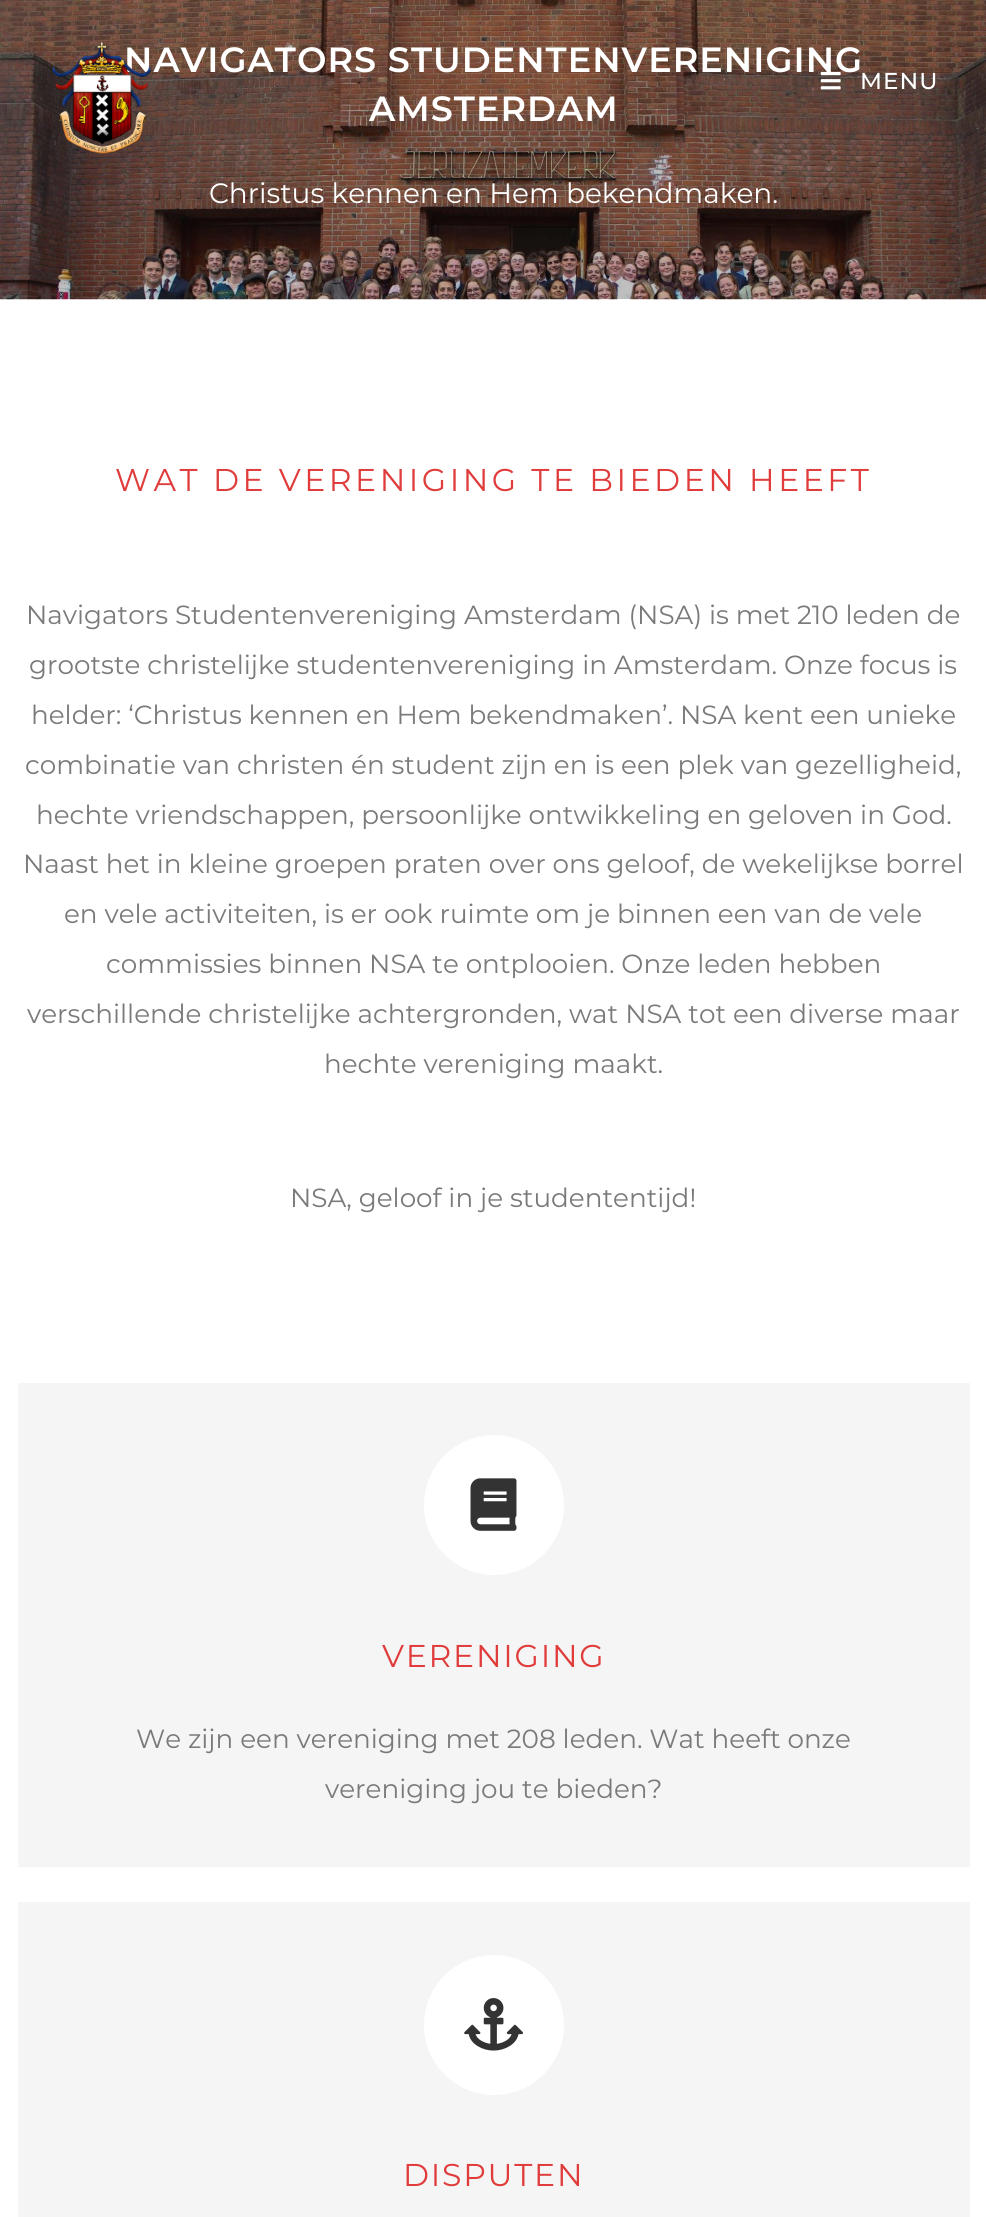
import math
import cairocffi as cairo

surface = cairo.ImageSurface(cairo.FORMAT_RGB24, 986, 2217)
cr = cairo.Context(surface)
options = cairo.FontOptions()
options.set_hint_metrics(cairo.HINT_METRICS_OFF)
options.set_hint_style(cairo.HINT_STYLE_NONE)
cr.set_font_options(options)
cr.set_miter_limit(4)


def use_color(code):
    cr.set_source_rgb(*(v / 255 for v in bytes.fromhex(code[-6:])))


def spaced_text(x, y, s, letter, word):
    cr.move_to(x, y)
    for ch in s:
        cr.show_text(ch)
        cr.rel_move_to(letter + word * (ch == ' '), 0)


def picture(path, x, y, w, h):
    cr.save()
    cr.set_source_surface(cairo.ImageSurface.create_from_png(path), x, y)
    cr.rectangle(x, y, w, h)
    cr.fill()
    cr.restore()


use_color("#ffffff")
cr.paint()
picture("img1.png", 0, 0, 986, 300)
cr.select_font_face("Montserrat SemiBold")
cr.set_font_size(35)
use_color("#ffffff")
spaced_text(124, 72, "NAVIGATORS STUDENTENVERENIGING", 1.05, 0)
spaced_text(369, 121, "AMSTERDAM", 1.05, 0)
cr.select_font_face("Montserrat")
cr.set_font_size(28)
cr.move_to(209, 203)
cr.show_text("Christus kennen en Hem bekendmaken.")
cr.set_font_size(31.5)
use_color("#e03c3c")
spaced_text(115, 491, "WAT DE VERENIGING TE BIEDEN HEEFT", 3.5, 0)
cr.set_font_size(26.25)
use_color("#7a7a7a")
cr.move_to(26, 624)
cr.show_text("Navigators Studentenvereniging Amsterdam (NSA) is met 210 leden de")
cr.move_to(29, 674)
cr.show_text("grootste christelijke studentenvereniging in Amsterdam. Onze focus is")
cr.move_to(31, 724)
cr.show_text("helder: ‘Christus kennen en Hem bekendmaken’. NSA kent een unieke")
cr.move_to(25, 774)
cr.show_text("combinatie van christen én student zijn en is een plek van gezelligheid,")
cr.move_to(36, 824)
cr.show_text("hechte vriendschappen, persoonlijke ontwikkeling en geloven in God.")
cr.move_to(23, 873)
cr.show_text("Naast het in kleine groepen praten over ons geloof, de wekelijkse borrel")
cr.move_to(64, 923)
cr.show_text("en vele activiteiten, is er ook ruimte om je binnen een van de vele")
cr.move_to(106, 973)
cr.show_text("commissies binnen NSA te ontplooien. Onze leden hebben")
cr.move_to(27, 1023)
cr.show_text("verschillende christelijke achtergronden, wat NSA tot een diverse maar")
cr.move_to(324, 1073)
cr.show_text("hechte vereniging maakt.")
cr.move_to(290, 1207)
cr.show_text("NSA, geloof in je studententijd!")
use_color("#f5f5f5")
cr.rectangle(18, 1383, 952, 484)
cr.fill()
use_color("#ffffff")
cr.arc(494, 1505, 70, 0, 2 * math.pi)
cr.fill()
picture("img2.png", 470, 1478, 47, 53)
cr.set_font_size(31.5)
use_color("#e03c3c")
spaced_text(382, 1667, "VERENIGING", 1.75, 0)
cr.set_font_size(26.25)
use_color("#7a7a7a")
cr.move_to(136, 1748)
cr.show_text("We zijn een vereniging met 208 leden. Wat heeft onze")
cr.move_to(325, 1798)
cr.show_text("vereniging jou te bieden?")
use_color("#f5f5f5")
cr.rectangle(18, 1902, 952, 315)
cr.fill()
use_color("#ffffff")
cr.arc(494, 2025, 70, 0, 2 * math.pi)
cr.fill()
picture("img3.png", 464, 1998, 59, 53)
cr.set_font_size(31.5)
use_color("#e03c3c")
spaced_text(403, 2186, "DISPUTEN", 1.75, 0)
picture("img4.png", 51, 42, 101, 112)
picture("img5.png", 820, 72, 21, 18)
cr.select_font_face("Montserrat Medium")
cr.set_font_size(23)
use_color("#ffffff")
spaced_text(860, 89, "MENU", 1.05, 0)
surface.write_to_png("result.png")
